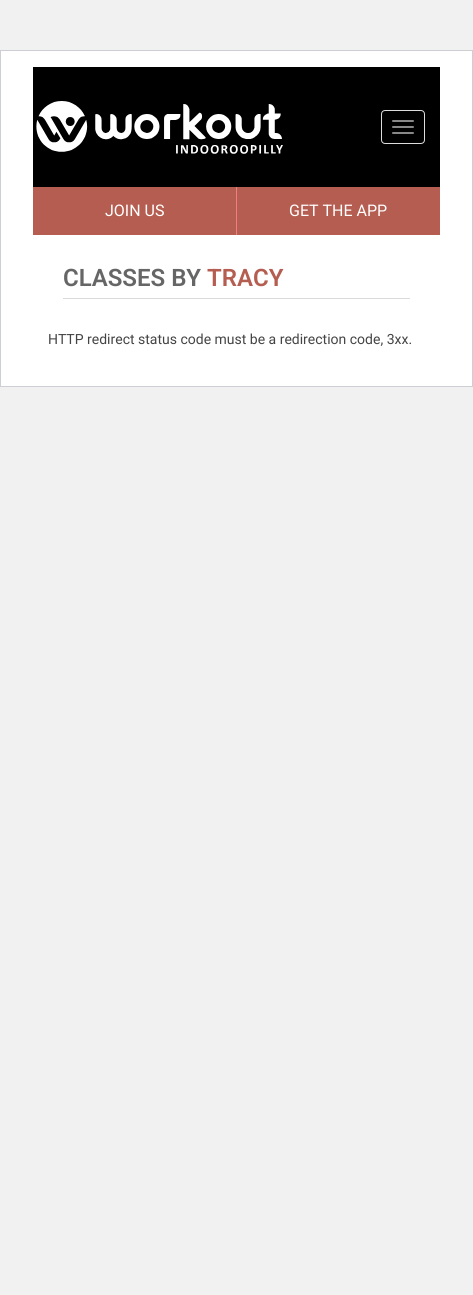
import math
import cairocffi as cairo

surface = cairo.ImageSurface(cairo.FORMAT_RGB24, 473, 1295)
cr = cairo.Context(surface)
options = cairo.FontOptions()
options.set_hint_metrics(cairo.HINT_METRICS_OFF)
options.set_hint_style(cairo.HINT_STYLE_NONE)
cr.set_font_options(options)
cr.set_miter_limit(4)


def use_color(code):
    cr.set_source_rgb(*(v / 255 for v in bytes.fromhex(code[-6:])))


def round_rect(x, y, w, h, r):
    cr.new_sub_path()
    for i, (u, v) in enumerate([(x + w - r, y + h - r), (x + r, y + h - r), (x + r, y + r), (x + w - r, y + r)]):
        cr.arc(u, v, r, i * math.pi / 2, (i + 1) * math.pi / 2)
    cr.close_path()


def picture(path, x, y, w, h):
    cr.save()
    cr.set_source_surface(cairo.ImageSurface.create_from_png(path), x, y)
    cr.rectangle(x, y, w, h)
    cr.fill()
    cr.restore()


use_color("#f1f1f1")
cr.paint()
use_color("#ffffff")
cr.rectangle(0.5, 50.5, 472, 336)
cr.fill_preserve()
use_color("#ccd0d4")
cr.set_line_width(1)
cr.stroke()
use_color("#000000")
cr.rectangle(33, 67, 407, 120)
cr.fill()
picture("img1.png", 36, 101, 247, 53)
round_rect(381.5, 110.5, 43, 33, 3.5)
use_color("#dddddd")
cr.stroke()
use_color("#888888")
round_rect(392, 120, 22, 2, 1)
cr.fill()
round_rect(392, 126, 22, 2, 1)
cr.fill()
round_rect(392, 132, 22, 2, 1)
cr.fill()
use_color("#b45d50")
cr.rectangle(33, 187, 407, 48)
cr.fill()
use_color("#f07e82")
cr.rectangle(236, 187, 1, 48)
cr.fill()
cr.select_font_face("Roboto")
cr.set_font_size(16)
use_color("#ffffff")
cr.move_to(105, 216)
cr.show_text("JOIN US")
cr.move_to(289, 216)
cr.show_text("GET THE APP")
use_color("#dadada")
cr.rectangle(63, 298, 347, 1)
cr.fill()
cr.select_font_face("Roboto SemiBold")
cr.set_font_size(24)
use_color("#666666")
cr.move_to(63, 286)
cr.show_text("CLASSES BY")
use_color("#b45d50")
cr.move_to(207, 286)
cr.show_text("TRACY")
cr.select_font_face("Roboto")
cr.set_font_size(14)
use_color("#444444")
cr.move_to(48, 344)
cr.show_text("HTTP redirect status code must be a redirection code, 3xx.")
surface.write_to_png("result.png")
